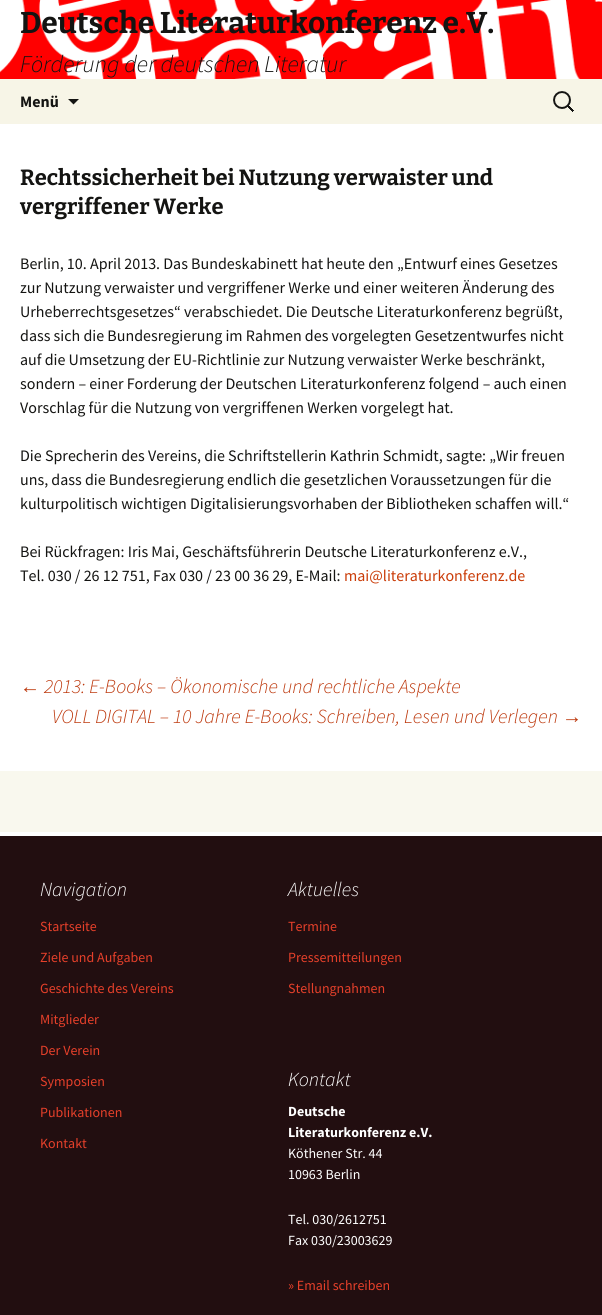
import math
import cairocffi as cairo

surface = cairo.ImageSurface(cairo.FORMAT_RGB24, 602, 1315)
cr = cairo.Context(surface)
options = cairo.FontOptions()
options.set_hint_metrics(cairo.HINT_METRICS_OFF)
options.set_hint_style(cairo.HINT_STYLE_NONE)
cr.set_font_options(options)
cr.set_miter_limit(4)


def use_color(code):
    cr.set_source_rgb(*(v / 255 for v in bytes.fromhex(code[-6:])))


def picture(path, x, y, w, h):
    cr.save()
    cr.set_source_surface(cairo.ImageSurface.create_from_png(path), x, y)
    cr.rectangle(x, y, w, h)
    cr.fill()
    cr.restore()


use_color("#ffffff")
cr.paint()
picture("img1.png", 0, 0, 602, 79)
cr.select_font_face("Bitter Thin")
cr.set_font_size(30)
use_color("#141412")
cr.move_to(20, 33)
cr.show_text("Deutsche Literaturkonferenz e.V.")
cr.select_font_face("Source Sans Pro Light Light", cairo.FONT_SLANT_ITALIC)
cr.set_font_size(24)
cr.move_to(20, 72)
cr.show_text("Förderung der deutschen Literatur")
use_color("#f7f5e7")
cr.rectangle(0, 79, 602, 45)
cr.fill()
cr.select_font_face("Source Sans Pro", cairo.FONT_SLANT_NORMAL, cairo.FONT_WEIGHT_BOLD)
cr.set_font_size(16)
use_color("#141412")
cr.move_to(20, 107)
cr.show_text("Menü")
cr.new_path()
cr.move_to(68, 99)
cr.line_to(73.5, 104.5)
cr.line_to(79, 99)
cr.close_path()
cr.fill()
picture("img2.png", 553, 91, 21, 21)
cr.select_font_face("Bitter Thin")
cr.set_font_size(22)
cr.move_to(20, 185)
cr.show_text("Rechtssicherheit bei Nutzung verwaister und")
cr.move_to(20, 214)
cr.show_text("vergriffener Werke")
cr.select_font_face("Source Sans Pro")
cr.set_font_size(16)
cr.move_to(20, 269)
cr.show_text("Berlin, 10. April 2013. Das Bundeskabinett hat heute den „Entwurf eines Gesetzes")
cr.move_to(20, 293)
cr.show_text("zur Nutzung verwaister und vergriffener Werke und einer weiteren Änderung des")
cr.move_to(20, 317)
cr.show_text("Urheberrechtsgesetzes“ verabschiedet. Die Deutsche Literaturkonferenz begrüßt,")
cr.move_to(20, 341)
cr.show_text("dass sich die Bundesregierung im Rahmen des vorgelegten Gesetzentwurfes nicht")
cr.move_to(20, 365)
cr.show_text("auf die Umsetzung der EU-Richtlinie zur Nutzung verwaister Werke beschränkt,")
cr.move_to(20, 389)
cr.show_text("sondern – einer Forderung der Deutschen Literaturkonferenz folgend – auch einen")
cr.move_to(20, 413)
cr.show_text("Vorschlag für die Nutzung von vergriffenen Werken vorgelegt hat.")
cr.move_to(20, 461)
cr.show_text("Die Sprecherin des Vereins, die Schriftstellerin Kathrin Schmidt, sagte: „Wir freuen")
cr.move_to(20, 485)
cr.show_text("uns, dass die Bundesregierung endlich die gesetzlichen Voraussetzungen für die")
cr.move_to(20, 509)
cr.show_text("kulturpolitisch wichtigen Digitalisierungsvorhaben der Bibliotheken schaffen will.“")
cr.move_to(20, 557)
cr.show_text("Bei Rückfragen: Iris Mai, Geschäftsführerin Deutsche Literaturkonferenz e.V.,")
cr.move_to(20, 581)
cr.show_text("Tel. 030 / 26 12 751, Fax 030 / 23 00 36 29, E-Mail:")
use_color("#ca3c08")
cr.move_to(344, 581)
cr.show_text("mai@literaturkonferenz.de")
cr.select_font_face("Liberation Sans", cairo.FONT_SLANT_ITALIC)
cr.set_font_size(20)
use_color("#bc360a")
cr.move_to(20, 693)
cr.show_text("←")
cr.select_font_face("Source Sans Pro Light Light", cairo.FONT_SLANT_ITALIC)
cr.move_to(44, 693)
cr.show_text("2013: E-Books – Ökonomische und rechtliche Aspekte")
cr.move_to(52, 723)
cr.show_text("VOLL DIGITAL – 10 Jahre E-Books: Schreiben, Lesen und Verlegen")
cr.select_font_face("Liberation Sans", cairo.FONT_SLANT_ITALIC)
cr.move_to(562, 723)
cr.show_text("→")
use_color("#f9f8ee")
cr.rectangle(0, 771, 602, 61)
cr.fill()
use_color("#220e10")
cr.rectangle(0, 836, 602, 479)
cr.fill()
cr.select_font_face("Source Sans Pro Light Light", cairo.FONT_SLANT_ITALIC)
use_color("#ffffff")
cr.move_to(40, 896)
cr.show_text("Navigation")
cr.select_font_face("Source Sans Pro")
cr.set_font_size(14)
use_color("#e6402a")
cr.move_to(40, 931)
cr.show_text("Startseite")
cr.move_to(40, 962)
cr.show_text("Ziele und Aufgaben")
cr.move_to(40, 993)
cr.show_text("Geschichte des Vereins")
cr.move_to(40, 1024)
cr.show_text("Mitglieder")
cr.move_to(40, 1055)
cr.show_text("Der Verein")
cr.move_to(40, 1086)
cr.show_text("Symposien")
cr.move_to(40, 1117)
cr.show_text("Publikationen")
cr.move_to(40, 1148)
cr.show_text("Kontakt")
cr.select_font_face("Source Sans Pro Light Light", cairo.FONT_SLANT_ITALIC)
cr.set_font_size(20)
use_color("#ffffff")
cr.move_to(288, 896)
cr.show_text("Aktuelles")
cr.select_font_face("Source Sans Pro")
cr.set_font_size(14)
use_color("#e6402a")
cr.move_to(288, 931)
cr.show_text("Termine")
cr.move_to(288, 962)
cr.show_text("Pressemitteilungen")
cr.move_to(288, 993)
cr.show_text("Stellungnahmen")
cr.select_font_face("Source Sans Pro Light Light", cairo.FONT_SLANT_ITALIC)
cr.set_font_size(20)
use_color("#ffffff")
cr.move_to(288, 1086)
cr.show_text("Kontakt")
cr.select_font_face("Source Sans Pro", cairo.FONT_SLANT_NORMAL, cairo.FONT_WEIGHT_BOLD)
cr.set_font_size(14)
cr.move_to(288, 1116)
cr.show_text("Deutsche")
cr.move_to(288, 1137)
cr.show_text("Literaturkonferenz e.V.")
cr.select_font_face("Source Sans Pro")
cr.move_to(288, 1158)
cr.show_text("Köthener Str. 44")
cr.move_to(288, 1179)
cr.show_text("10963 Berlin")
cr.move_to(288, 1224)
cr.show_text("Tel. 030/2612751")
cr.move_to(288, 1245)
cr.show_text("Fax 030/23003629")
use_color("#e6402a")
cr.move_to(288, 1290)
cr.show_text("» Email schreiben")
surface.write_to_png("result.png")
